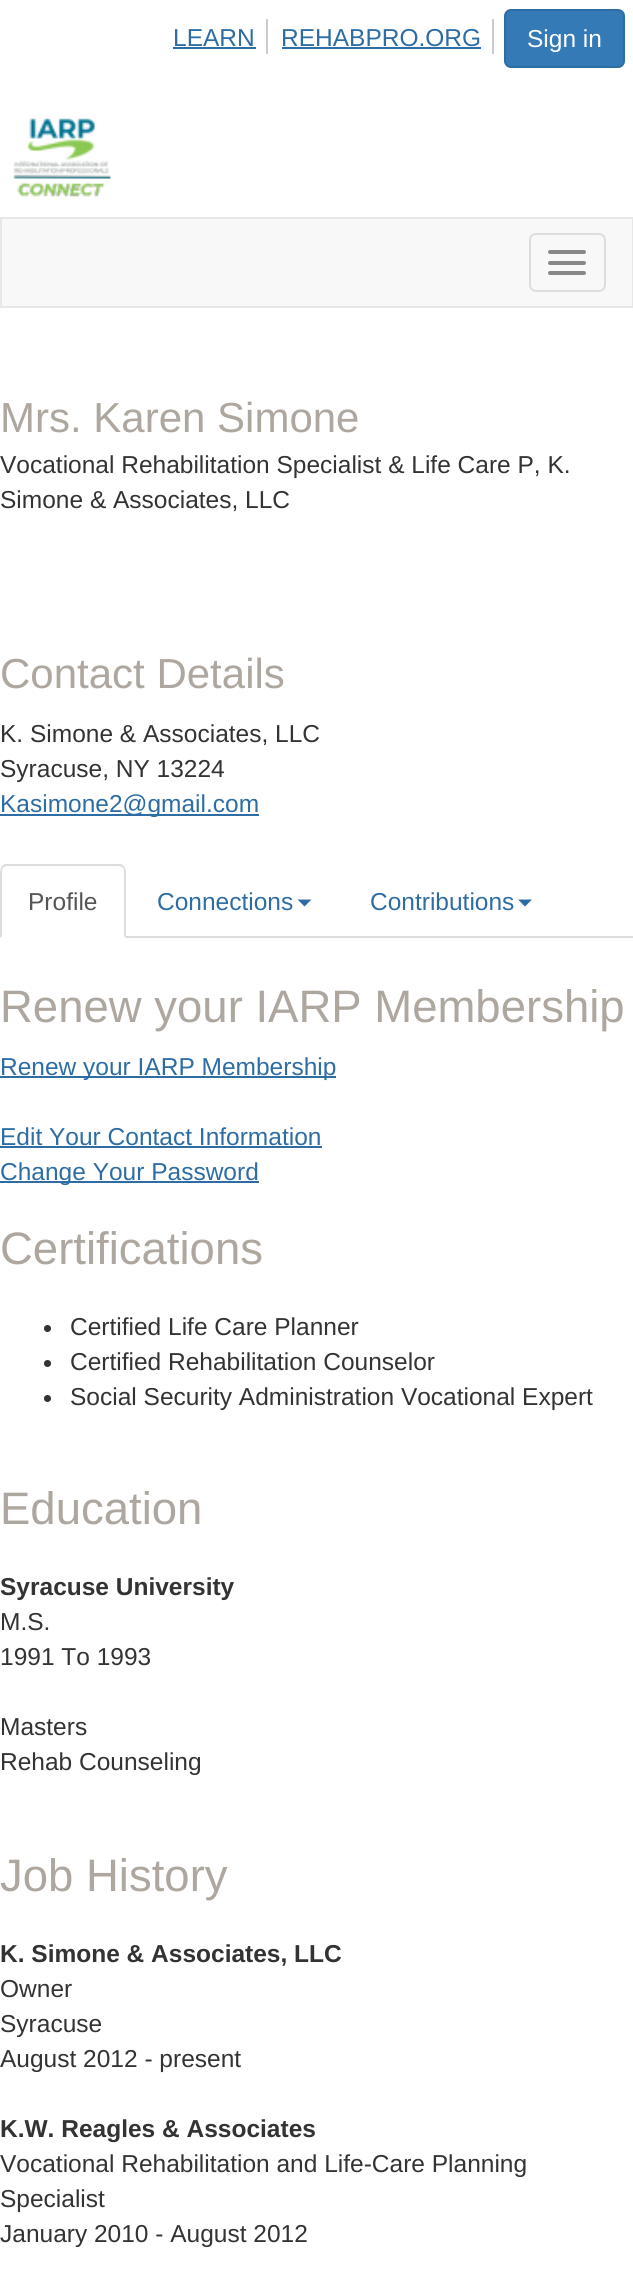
import math
import cairocffi as cairo

surface = cairo.ImageSurface(cairo.FORMAT_RGB24, 633, 2270)
cr = cairo.Context(surface)
options = cairo.FontOptions()
options.set_hint_metrics(cairo.HINT_METRICS_OFF)
options.set_hint_style(cairo.HINT_STYLE_NONE)
cr.set_font_options(options)
cr.set_miter_limit(4)


def use_color(code):
    cr.set_source_rgb(*(v / 255 for v in bytes.fromhex(code[-6:])))


def round_rect(x, y, w, h, r):
    cr.new_sub_path()
    for i, (u, v) in enumerate([(x + w - r, y + h - r), (x + r, y + h - r), (x + r, y + r), (x + w - r, y + r)]):
        cr.arc(u, v, r, i * math.pi / 2, (i + 1) * math.pi / 2)
    cr.close_path()


def picture(path, x, y, w, h):
    cr.save()
    cr.set_source_surface(cairo.ImageSurface.create_from_png(path), x, y)
    cr.rectangle(x, y, w, h)
    cr.fill()
    cr.restore()


use_color("#ffffff")
cr.paint()
use_color("#cccccc")
cr.rectangle(266, 19, 2, 35)
cr.fill()
cr.select_font_face("Liberation Sans")
cr.set_font_size(24.5)
use_color("#2e6da4")
cr.move_to(173, 46)
cr.show_text("LEARN")
cr.rectangle(173, 47, 83, 2)
cr.fill()
use_color("#cccccc")
cr.rectangle(492, 19, 2, 35)
cr.fill()
use_color("#2e6da4")
cr.move_to(281, 46)
cr.show_text("REHABPRO.ORG")
cr.rectangle(282, 47, 199, 2)
cr.fill()
use_color("#337ab7")
round_rect(505, 10, 119, 57, 6)
cr.fill_preserve()
use_color("#2e6da4")
cr.stroke()
use_color("#ffffff")
cr.move_to(527, 47)
cr.show_text("Sign in")
picture("img1.png", 13, 118, 98, 79)
use_color("#f8f8f8")
cr.rectangle(1, 218, 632, 89)
cr.fill_preserve()
use_color("#e7e7e7")
cr.stroke()
round_rect(530, 234, 75, 57, 6)
use_color("#dddddd")
cr.stroke()
use_color("#888888")
round_rect(548, 250, 38, 4, 2)
cr.fill()
round_rect(548, 261, 38, 4, 2)
cr.fill()
round_rect(548, 271, 38, 4, 2)
cr.fill()
cr.set_font_size(42)
use_color("#aea79f")
cr.move_to(0, 432)
cr.show_text("Mrs. Karen Simone")
cr.set_font_size(24.5)
use_color("#333333")
cr.move_to(0, 473)
cr.show_text("Vocational Rehabilitation Specialist & Life Care P, K.")
cr.move_to(0, 508)
cr.show_text("Simone & Associates, LLC")
cr.set_font_size(42)
use_color("#aea79f")
cr.move_to(0, 688)
cr.show_text("Contact Details")
cr.set_font_size(24.5)
use_color("#333333")
cr.move_to(0, 742)
cr.show_text("K. Simone & Associates, LLC")
cr.move_to(0, 777)
cr.show_text("Syracuse, NY 13224")
use_color("#2e6da4")
cr.rectangle(0, 814, 259, 2)
cr.fill()
cr.move_to(0, 812)
cr.show_text("Kasimone2@gmail.com")
use_color("#dddddd")
cr.rectangle(126, 936, 507, 2)
cr.fill()
cr.new_path()
cr.move_to(7, 866)
cr.curve_to(6, 866, 4, 867, 3, 868)
cr.line_to(2, 866)
cr.line_to(5, 864)
cr.line_to(121, 864)
cr.line_to(124, 866)
cr.line_to(123, 868)
cr.curve_to(122, 867, 120, 866, 119, 866)
cr.close_path()
cr.fill()
cr.new_path()
cr.move_to(126, 938)
cr.line_to(126, 872)
cr.curve_to(126, 870, 125, 868, 124, 866)
cr.line_to(123, 868)
cr.curve_to(124, 869, 124, 870, 124, 872)
cr.line_to(124, 936)
cr.close_path()
cr.fill()
cr.new_path()
cr.move_to(0, 938)
cr.line_to(2, 936)
cr.line_to(2, 872)
cr.curve_to(2, 870, 2, 869, 3, 868)
cr.line_to(2, 866)
cr.curve_to(1, 868, 0, 870, 0, 872)
cr.close_path()
cr.fill()
use_color("#555555")
cr.move_to(28, 910)
cr.show_text("Profile")
use_color("#2e6da4")
cr.move_to(157, 910)
cr.show_text("Connections")
cr.new_path()
cr.move_to(297.5, 899.5)
cr.line_to(311.5, 899.5)
cr.line_to(304.5, 906.5)
cr.close_path()
cr.fill()
cr.move_to(370, 910)
cr.show_text("Contributions")
cr.new_path()
cr.move_to(518, 899.5)
cr.line_to(532, 899.5)
cr.line_to(525, 906.5)
cr.close_path()
cr.fill()
cr.set_font_size(45.5)
use_color("#aea79f")
cr.move_to(0, 1022)
cr.show_text("Renew your IARP Membership")
use_color("#2e6da4")
cr.rectangle(0, 1076, 336, 2)
cr.fill()
cr.set_font_size(24.5)
cr.move_to(0, 1075)
cr.show_text("Renew your IARP Membership")
cr.move_to(0, 1145)
cr.show_text("Edit Your Contact Information")
cr.rectangle(0, 1146, 322, 2)
cr.fill()
cr.rectangle(0, 1181, 259, 2)
cr.fill()
cr.move_to(0, 1180)
cr.show_text("Change Your Password")
cr.set_font_size(45.5)
use_color("#aea79f")
cr.move_to(0, 1264)
cr.show_text("Certifications")
use_color("#333333")
cr.new_path()
cr.arc(47.5, 1328.5, 3.5, 0, 2 * math.pi)
cr.fill()
cr.set_font_size(24.5)
cr.move_to(70, 1335)
cr.show_text("Certified Life Care Planner")
cr.new_path()
cr.arc(47.5, 1363.5, 3.5, 0, 2 * math.pi)
cr.fill()
cr.move_to(70, 1370)
cr.show_text("Certified Rehabilitation Counselor")
cr.new_path()
cr.arc(47.5, 1398.5, 3.5, 0, 2 * math.pi)
cr.fill()
cr.move_to(70, 1405)
cr.show_text("Social Security Administration Vocational Expert")
cr.set_font_size(45.5)
use_color("#aea79f")
cr.move_to(0, 1524)
cr.show_text("Education")
cr.select_font_face("Liberation Sans", cairo.FONT_SLANT_NORMAL, cairo.FONT_WEIGHT_BOLD)
cr.set_font_size(24.5)
use_color("#333333")
cr.move_to(0, 1595)
cr.show_text("Syracuse University")
cr.select_font_face("Liberation Sans")
cr.move_to(0, 1630)
cr.show_text("M.S.")
cr.move_to(0, 1665)
cr.show_text("1991 To 1993")
cr.move_to(0, 1735)
cr.show_text("Masters")
cr.move_to(0, 1770)
cr.show_text("Rehab Counseling")
cr.set_font_size(45.5)
use_color("#aea79f")
cr.move_to(0, 1891)
cr.show_text("Job History")
cr.select_font_face("Liberation Sans", cairo.FONT_SLANT_NORMAL, cairo.FONT_WEIGHT_BOLD)
cr.set_font_size(24.5)
use_color("#333333")
cr.move_to(0, 1962)
cr.show_text("K. Simone & Associates, LLC")
cr.select_font_face("Liberation Sans")
cr.move_to(0, 1997)
cr.show_text("Owner")
cr.move_to(0, 2032)
cr.show_text("Syracuse")
cr.move_to(0, 2067)
cr.show_text("August 2012 - present")
cr.select_font_face("Liberation Sans", cairo.FONT_SLANT_NORMAL, cairo.FONT_WEIGHT_BOLD)
cr.move_to(0, 2137)
cr.show_text("K.W. Reagles & Associates")
cr.select_font_face("Liberation Sans")
cr.move_to(0, 2172)
cr.show_text("Vocational Rehabilitation and Life-Care Planning")
cr.move_to(0, 2207)
cr.show_text("Specialist")
cr.move_to(0, 2242)
cr.show_text("January 2010 - August 2012")
surface.write_to_png("result.png")
